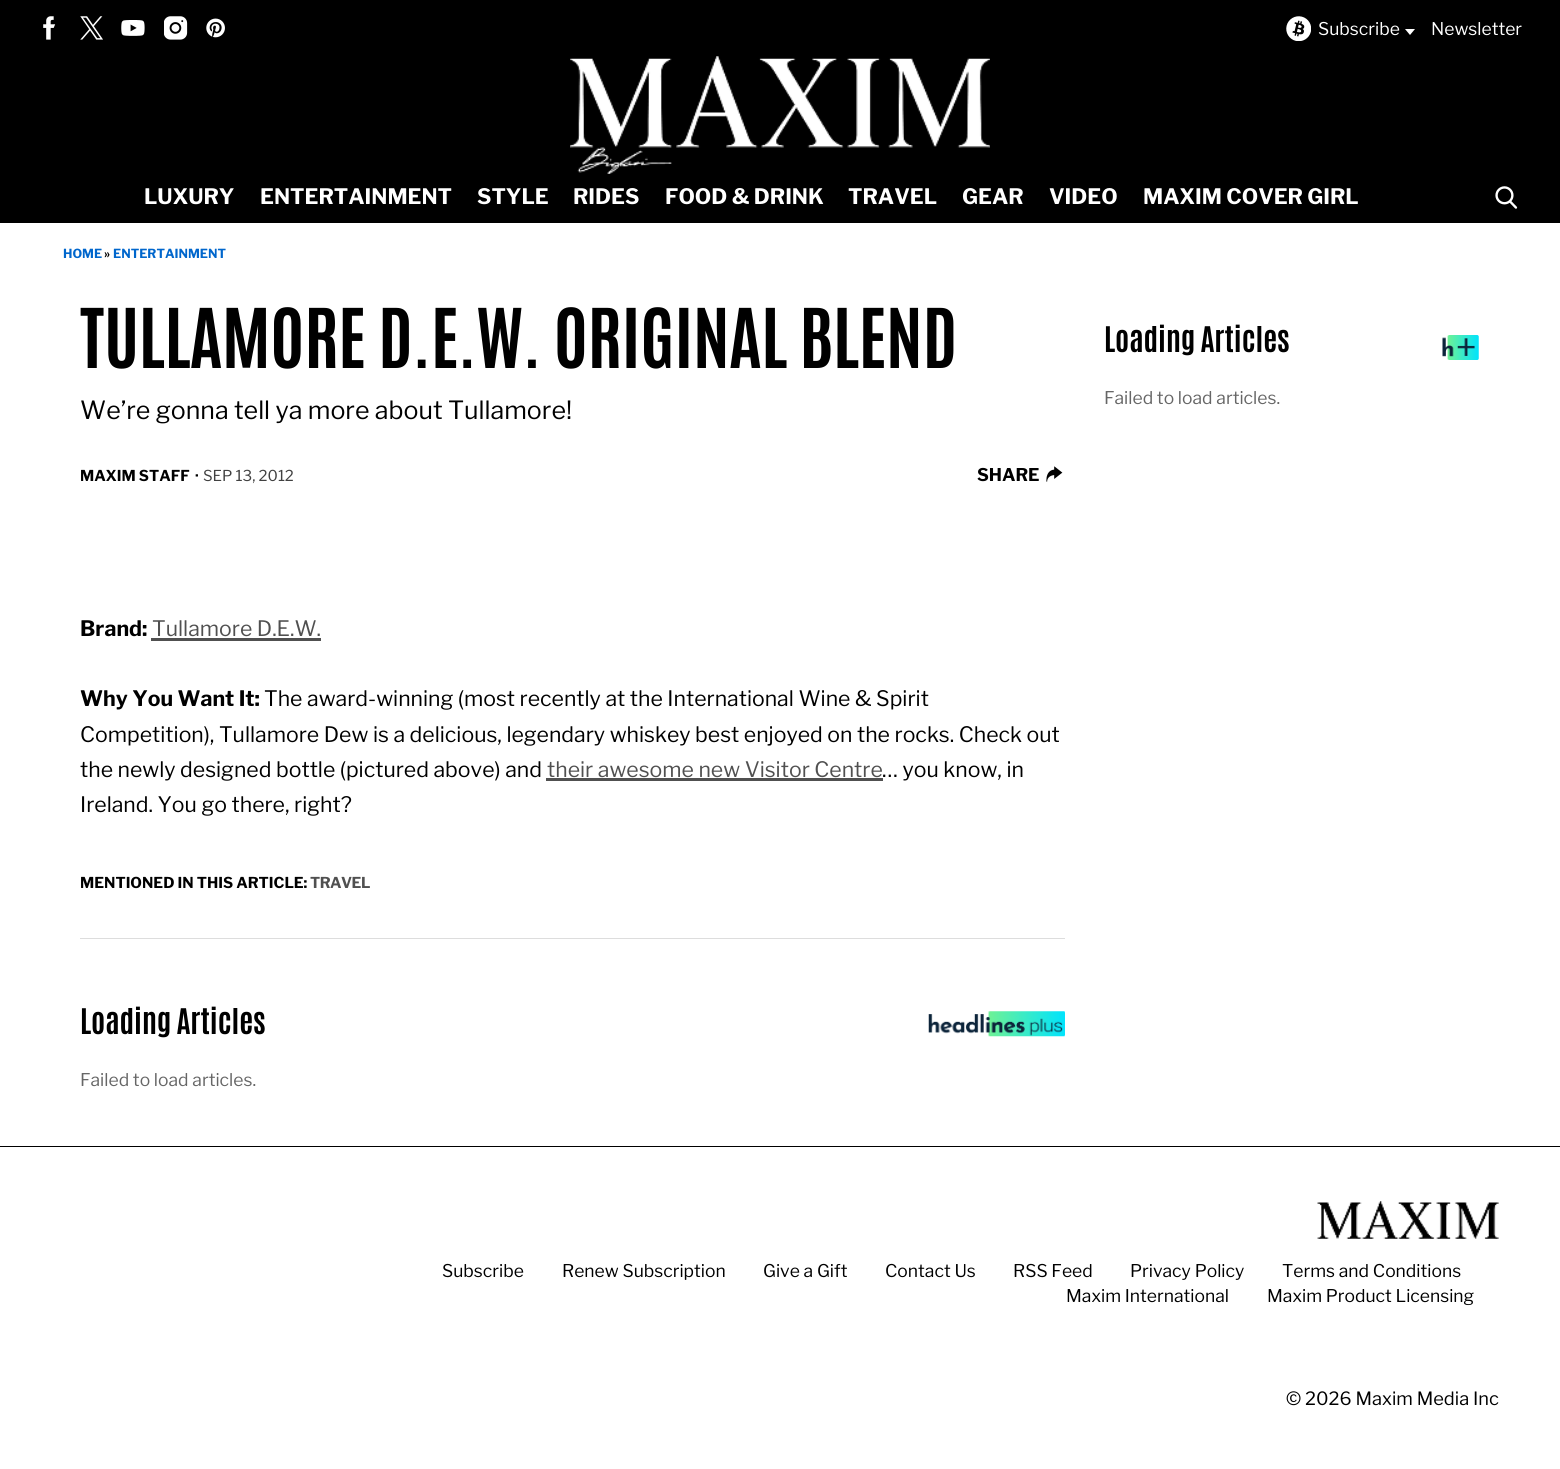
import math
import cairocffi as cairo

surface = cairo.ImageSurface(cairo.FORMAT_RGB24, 1560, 1469)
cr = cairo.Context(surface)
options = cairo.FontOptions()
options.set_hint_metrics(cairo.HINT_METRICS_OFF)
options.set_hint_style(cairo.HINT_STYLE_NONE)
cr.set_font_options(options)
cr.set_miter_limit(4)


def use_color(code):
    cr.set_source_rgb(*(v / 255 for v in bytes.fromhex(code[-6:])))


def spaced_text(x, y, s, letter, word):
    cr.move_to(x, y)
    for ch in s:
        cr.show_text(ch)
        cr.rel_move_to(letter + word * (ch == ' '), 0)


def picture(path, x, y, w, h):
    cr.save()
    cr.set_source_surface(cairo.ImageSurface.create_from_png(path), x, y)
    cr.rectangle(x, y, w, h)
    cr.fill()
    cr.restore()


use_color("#ffffff")
cr.paint()
use_color("#000000")
cr.rectangle(0, 0, 1560, 223)
cr.fill()
picture("img1.png", 43, 16, 13, 24)
picture("img2.png", 80, 16, 23, 24)
picture("img3.png", 121, 20, 24, 16)
picture("img4.png", 164, 16, 24, 24)
picture("img5.png", 206, 18, 19, 20)
picture("img6.png", 1286, 16, 25, 25)
cr.select_font_face("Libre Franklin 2 Thin")
cr.set_font_size(17.5)
use_color("#ffffff")
cr.move_to(1318, 35)
cr.show_text("Subscribe")
cr.new_path()
cr.move_to(1405, 29)
cr.line_to(1415, 29)
cr.line_to(1410, 35)
cr.close_path()
cr.fill()
cr.move_to(1431, 35)
cr.show_text("Newsletter")
picture("img7.png", 570, 56, 420, 118)
cr.select_font_face("Libre Franklin Thin")
cr.set_font_size(21.25)
cr.move_to(144, 204)
cr.show_text("LUXURY")
cr.move_to(260, 204)
cr.show_text("ENTERTAINMENT")
cr.move_to(477, 204)
cr.show_text("STYLE")
cr.move_to(573, 204)
cr.show_text("RIDES")
cr.move_to(665, 204)
cr.show_text("FOOD & DRINK")
cr.move_to(848, 204)
cr.show_text("TRAVEL")
cr.move_to(962, 204)
cr.show_text("GEAR")
cr.move_to(1049, 204)
cr.show_text("VIDEO")
cr.move_to(1143, 204)
cr.show_text("MAXIM COVER GIRL")
picture("img8.png", 1495, 186, 23, 23)
cr.set_font_size(12.5)
use_color("#0066cc")
cr.move_to(63, 258)
cr.show_text("HOME")
use_color("#000000")
cr.move_to(104, 258)
cr.show_text("»")
use_color("#0066cc")
cr.move_to(113, 258)
cr.show_text("ENTERTAINMENT")
cr.select_font_face("Antonio", cairo.FONT_SLANT_NORMAL, cairo.FONT_WEIGHT_BOLD)
cr.set_font_size(70)
use_color("#000000")
cr.move_to(80, 368)
cr.show_text("TULLAMORE D.E.W. ORIGINAL BLEND")
cr.select_font_face("Libre Franklin 2 Thin")
cr.set_font_size(25)
cr.move_to(80, 419)
cr.show_text("We’re gonna tell ya more about Tullamore!")
cr.select_font_face("Libre Franklin Thin")
cr.set_font_size(15)
cr.move_to(80, 481)
cr.show_text("MAXIM STAFF")
cr.move_to(195, 481)
cr.show_text("·")
cr.select_font_face("Libre Franklin 2 Thin")
use_color("#404040")
cr.move_to(203, 481)
cr.show_text("SEP 13, 2012")
cr.select_font_face("Libre Franklin Thin")
cr.set_font_size(17.5)
use_color("#000000")
cr.move_to(977, 481)
cr.show_text("SHARE")
picture("img9.png", 1046, 466, 17, 16)
cr.set_font_size(21.25)
cr.move_to(80, 636)
cr.show_text("Brand:")
cr.select_font_face("Libre Franklin 2 Thin")
use_color("#505050")
cr.move_to(152, 636)
cr.show_text("Tullamore D.E.W.")
cr.rectangle(151, 638, 170, 3)
cr.fill()
cr.select_font_face("Libre Franklin Thin")
use_color("#000000")
cr.move_to(80, 706)
cr.show_text("Why You Want It:")
cr.select_font_face("Libre Franklin 2 Thin")
cr.move_to(264, 706)
cr.show_text("The award-winning (most recently at the International Wine & Spirit")
cr.move_to(80, 742)
cr.show_text("Competition), Tullamore Dew is a delicious, legendary whiskey best enjoyed on the rocks. Check out")
cr.move_to(80, 777)
cr.show_text("the newly designed bottle (pictured above) and")
use_color("#505050")
cr.move_to(547, 777)
cr.show_text("their awesome new Visitor Centre")
cr.rectangle(546, 778, 337, 3)
cr.fill()
use_color("#000000")
cr.move_to(882, 777)
cr.show_text("… you know, in")
cr.move_to(80, 812)
cr.show_text("Ireland. You go there, right?")
use_color("#dddddd")
cr.rectangle(80, 938, 985, 1)
cr.fill()
cr.select_font_face("Libre Franklin Thin")
cr.set_font_size(15)
use_color("#000000")
cr.move_to(80, 888)
cr.show_text("MENTIONED IN THIS ARTICLE:")
use_color("#505050")
spaced_text(310, 888, "TRAVEL", -0.5, 0)
cr.select_font_face("Antonio", cairo.FONT_SLANT_NORMAL, cairo.FONT_WEIGHT_BOLD)
cr.set_font_size(30)
use_color("#000000")
cr.move_to(80, 1034)
cr.show_text("Loading Articles")
picture("img10.png", 928, 1011, 137, 26)
cr.select_font_face("Libre Franklin 2 Thin")
cr.set_font_size(17.5)
use_color("#666666")
cr.move_to(80, 1086)
cr.show_text("Failed to load articles.")
cr.select_font_face("Antonio", cairo.FONT_SLANT_NORMAL, cairo.FONT_WEIGHT_BOLD)
cr.set_font_size(30)
use_color("#000000")
cr.move_to(1104, 352)
cr.show_text("Loading Articles")
picture("img11.png", 1442, 335, 37, 25)
cr.select_font_face("Libre Franklin 2 Thin")
cr.set_font_size(17.5)
use_color("#666666")
cr.move_to(1104, 404)
cr.show_text("Failed to load articles.")
use_color("#000000")
cr.rectangle(0, 1146, 1560, 1)
cr.fill()
picture("img12.png", 1317, 1201, 182, 38)
cr.move_to(442, 1277)
cr.show_text("Subscribe")
cr.move_to(562, 1277)
cr.show_text("Renew Subscription")
cr.move_to(763, 1277)
cr.show_text("Give a Gift")
cr.move_to(885, 1277)
cr.show_text("Contact Us")
cr.move_to(1013, 1277)
cr.show_text("RSS Feed")
cr.move_to(1130, 1277)
cr.show_text("Privacy Policy")
cr.move_to(1282, 1277)
cr.show_text("Terms and Conditions")
cr.move_to(1066, 1302)
cr.show_text("Maxim International")
cr.move_to(1267, 1302)
cr.show_text("Maxim Product Licensing")
cr.set_font_size(18.25)
cr.move_to(1286, 1405)
cr.show_text("© 2026 Maxim Media Inc")
surface.write_to_png("result.png")
